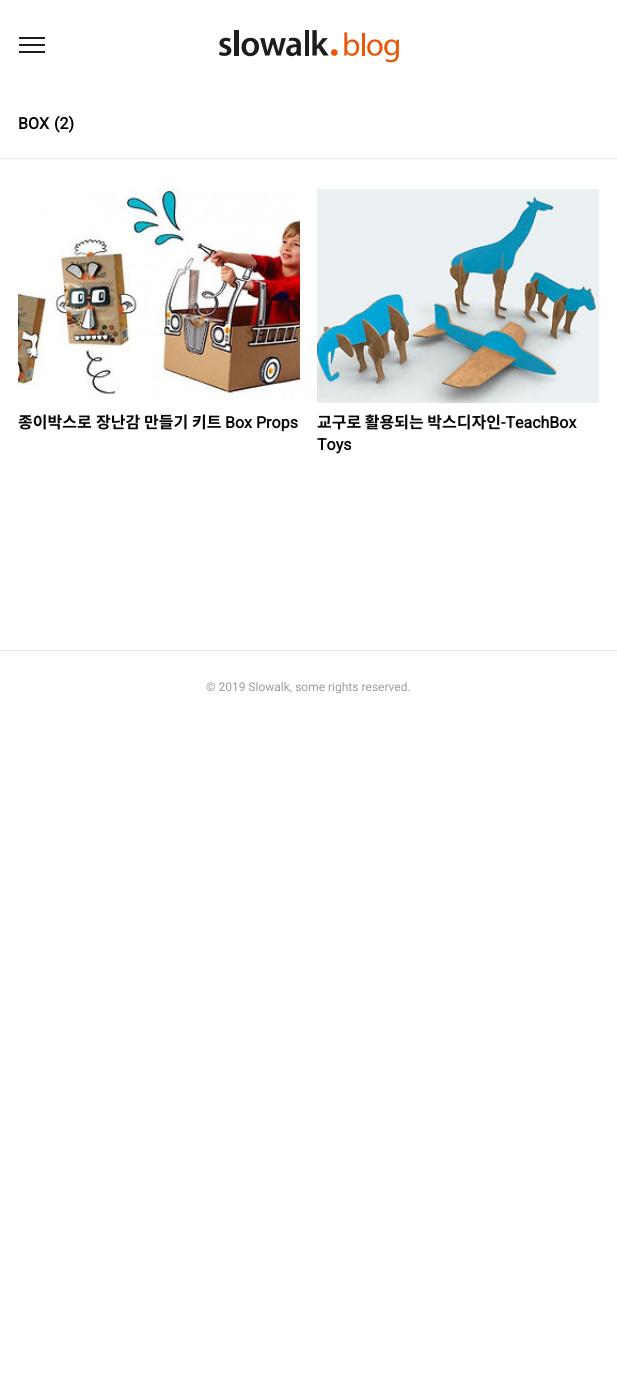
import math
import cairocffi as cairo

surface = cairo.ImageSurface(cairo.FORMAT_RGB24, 617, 1373)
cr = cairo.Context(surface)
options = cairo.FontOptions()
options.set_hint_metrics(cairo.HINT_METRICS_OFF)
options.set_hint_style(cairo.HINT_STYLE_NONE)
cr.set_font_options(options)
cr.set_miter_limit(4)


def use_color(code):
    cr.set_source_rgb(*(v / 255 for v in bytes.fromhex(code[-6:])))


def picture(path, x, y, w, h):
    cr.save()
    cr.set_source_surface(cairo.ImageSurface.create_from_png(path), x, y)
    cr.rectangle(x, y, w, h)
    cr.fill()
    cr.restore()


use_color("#ffffff")
cr.paint()
use_color("#231916")
cr.rectangle(19, 37, 26, 2)
cr.fill()
cr.rectangle(19, 44, 26, 2)
cr.fill()
cr.rectangle(19, 51, 26, 2)
cr.fill()
picture("img1.png", 219, 30, 180, 33)
use_color("#ebebeb")
cr.rectangle(0, 158, 617, 1)
cr.fill()
cr.select_font_face("Roboto", cairo.FONT_SLANT_NORMAL, cairo.FONT_WEIGHT_BOLD)
cr.set_font_size(16)
use_color("#000000")
cr.move_to(18, 129)
cr.show_text("BOX")
cr.move_to(54, 129)
cr.show_text("(2)")
picture("img2.png", 18, 189, 282, 214)
cr.select_font_face("Noto Sans KR", cairo.FONT_SLANT_NORMAL, cairo.FONT_WEIGHT_BOLD)
use_color("#080808")
cr.move_to(18, 428)
cr.show_text("종이박스로")
cr.move_to(96, 428)
cr.show_text("장난감")
cr.move_to(144, 428)
cr.show_text("만들기")
cr.move_to(192, 428)
cr.show_text("키트")
cr.select_font_face("Roboto", cairo.FONT_SLANT_NORMAL, cairo.FONT_WEIGHT_BOLD)
cr.move_to(225, 428)
cr.show_text("Box Props")
picture("img3.png", 317, 189, 282, 214)
cr.select_font_face("Noto Sans KR", cairo.FONT_SLANT_NORMAL, cairo.FONT_WEIGHT_BOLD)
cr.move_to(317, 428)
cr.show_text("교구로 활용되는 박스디자인")
cr.select_font_face("Roboto", cairo.FONT_SLANT_NORMAL, cairo.FONT_WEIGHT_BOLD)
cr.move_to(501, 428)
cr.show_text("-TeachBox")
cr.move_to(317, 450)
cr.show_text("Toys")
use_color("#ebebeb")
cr.rectangle(0, 650, 617, 1)
cr.fill()
cr.select_font_face("Roboto")
cr.set_font_size(12)
use_color("#9b9b9b")
cr.move_to(206, 691)
cr.show_text("© 2019 Slowalk, some rights reserved.")
surface.write_to_png("result.png")
